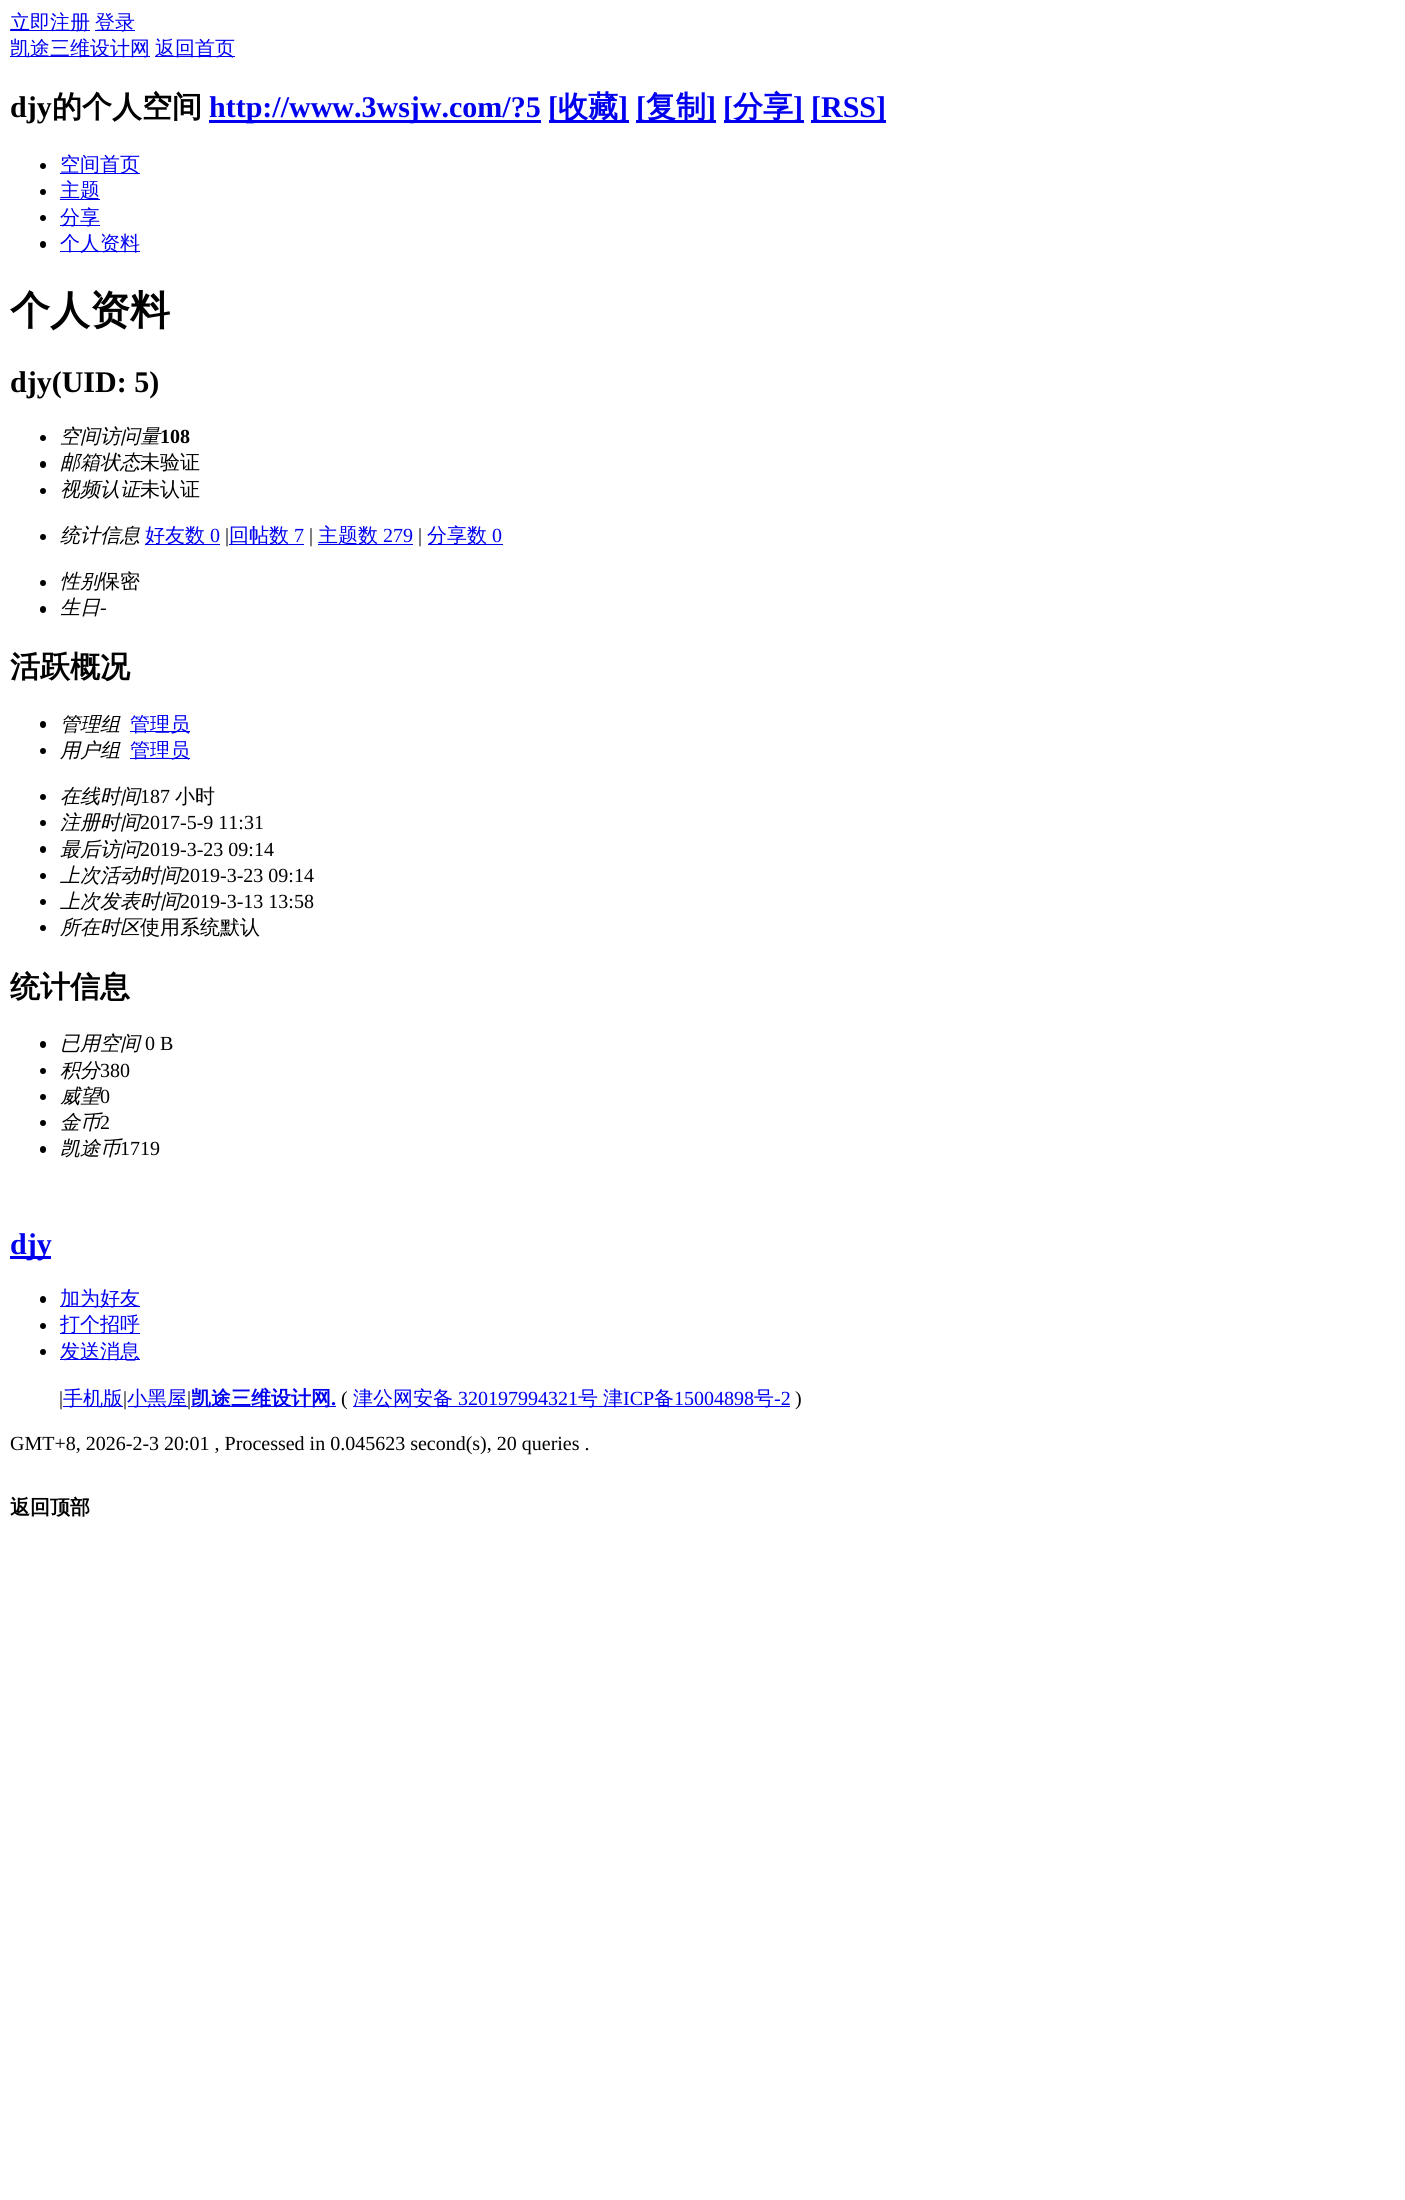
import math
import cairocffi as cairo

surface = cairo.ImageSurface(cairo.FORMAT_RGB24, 1405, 2200)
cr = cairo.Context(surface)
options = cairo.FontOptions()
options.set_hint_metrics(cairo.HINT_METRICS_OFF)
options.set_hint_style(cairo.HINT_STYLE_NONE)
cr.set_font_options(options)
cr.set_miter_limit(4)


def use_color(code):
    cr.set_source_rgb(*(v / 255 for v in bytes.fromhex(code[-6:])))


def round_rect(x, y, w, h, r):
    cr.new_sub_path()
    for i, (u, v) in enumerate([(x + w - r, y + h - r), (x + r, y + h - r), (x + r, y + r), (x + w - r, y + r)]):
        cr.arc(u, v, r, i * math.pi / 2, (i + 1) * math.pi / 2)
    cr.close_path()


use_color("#ffffff")
cr.paint()
use_color("#0000ee")
cr.rectangle(10, 30, 80, 1)
cr.fill()
cr.select_font_face("WenQuanYi Zen Hei Medium")
cr.set_font_size(20)
cr.move_to(10, 29)
cr.show_text("立即注册")
cr.rectangle(95, 30, 40, 1)
cr.fill()
cr.move_to(95, 29)
cr.show_text("登录")
cr.rectangle(10, 56, 140, 1)
cr.fill()
cr.move_to(10, 55)
cr.show_text("凯途三维设计网")
cr.rectangle(155, 56, 80, 1)
cr.fill()
cr.move_to(155, 55)
cr.show_text("返回首页")
cr.select_font_face("Liberation Serif", cairo.FONT_SLANT_NORMAL, cairo.FONT_WEIGHT_BOLD)
cr.set_font_size(30)
use_color("#000000")
cr.move_to(10, 117)
cr.show_text("djy")
cr.select_font_face("WenQuanYi Zen Hei", cairo.FONT_SLANT_NORMAL, cairo.FONT_WEIGHT_BOLD)
cr.move_to(52, 117)
cr.show_text("的个人空间")
use_color("#0000ee")
cr.rectangle(209, 120, 332, 3)
cr.fill()
cr.select_font_face("Liberation Serif", cairo.FONT_SLANT_NORMAL, cairo.FONT_WEIGHT_BOLD)
cr.move_to(209, 117)
cr.show_text("http://www.3wsjw.com/?5")
cr.rectangle(549, 120, 80, 3)
cr.fill()
cr.move_to(548, 117)
cr.show_text("[")
cr.select_font_face("WenQuanYi Zen Hei", cairo.FONT_SLANT_NORMAL, cairo.FONT_WEIGHT_BOLD)
cr.move_to(558, 117)
cr.show_text("收藏")
cr.select_font_face("Liberation Serif", cairo.FONT_SLANT_NORMAL, cairo.FONT_WEIGHT_BOLD)
cr.move_to(618, 117)
cr.show_text("]")
cr.rectangle(636, 120, 80, 3)
cr.fill()
cr.move_to(636, 117)
cr.show_text("[")
cr.select_font_face("WenQuanYi Zen Hei", cairo.FONT_SLANT_NORMAL, cairo.FONT_WEIGHT_BOLD)
cr.move_to(646, 117)
cr.show_text("复制")
cr.select_font_face("Liberation Serif", cairo.FONT_SLANT_NORMAL, cairo.FONT_WEIGHT_BOLD)
cr.move_to(706, 117)
cr.show_text("]")
cr.rectangle(724, 120, 80, 3)
cr.fill()
cr.move_to(723, 117)
cr.show_text("[")
cr.select_font_face("WenQuanYi Zen Hei", cairo.FONT_SLANT_NORMAL, cairo.FONT_WEIGHT_BOLD)
cr.move_to(733, 117)
cr.show_text("分享")
cr.select_font_face("Liberation Serif", cairo.FONT_SLANT_NORMAL, cairo.FONT_WEIGHT_BOLD)
cr.move_to(793, 117)
cr.show_text("]")
cr.rectangle(811, 120, 75, 3)
cr.fill()
cr.move_to(811, 117)
cr.show_text("[RSS]")
use_color("#000000")
cr.new_path()
cr.arc(43, 166, 3, 0, 2 * math.pi)
cr.fill()
use_color("#0000ee")
cr.rectangle(60, 173, 80, 1)
cr.fill()
cr.select_font_face("WenQuanYi Zen Hei Medium")
cr.set_font_size(20)
cr.move_to(60, 171)
cr.show_text("空间首页")
use_color("#000000")
cr.new_path()
cr.arc(43, 192, 3, 0, 2 * math.pi)
cr.fill()
use_color("#0000ee")
cr.rectangle(60, 199, 40, 1)
cr.fill()
cr.move_to(60, 197)
cr.show_text("主题")
use_color("#000000")
cr.new_path()
cr.arc(43, 218, 3, 0, 2 * math.pi)
cr.fill()
use_color("#0000ee")
cr.rectangle(60, 225, 40, 1)
cr.fill()
cr.move_to(60, 224)
cr.show_text("分享")
use_color("#000000")
round_rect(40, 241, 6, 7, 3)
cr.fill()
use_color("#0000ee")
cr.rectangle(60, 251, 80, 1)
cr.fill()
cr.move_to(60, 250)
cr.show_text("个人资料")
cr.select_font_face("WenQuanYi Zen Hei", cairo.FONT_SLANT_NORMAL, cairo.FONT_WEIGHT_BOLD)
cr.set_font_size(40)
use_color("#000000")
cr.move_to(10, 324)
cr.show_text("个人资料")
cr.select_font_face("Liberation Serif", cairo.FONT_SLANT_NORMAL, cairo.FONT_WEIGHT_BOLD)
cr.set_font_size(30)
cr.move_to(10, 392)
cr.show_text("djy(UID: 5)")
cr.new_path()
cr.arc(43, 438, 3, 0, 2 * math.pi)
cr.fill()
cr.select_font_face("WenQuanYi Zen Hei Medium", cairo.FONT_SLANT_ITALIC)
cr.set_font_size(20)
cr.move_to(60, 443)
cr.show_text("空间访问量")
cr.select_font_face("Liberation Serif", cairo.FONT_SLANT_NORMAL, cairo.FONT_WEIGHT_BOLD)
cr.move_to(160, 443)
cr.show_text("108")
round_rect(40, 461, 6, 7, 3)
cr.fill()
cr.select_font_face("WenQuanYi Zen Hei Medium", cairo.FONT_SLANT_ITALIC)
cr.move_to(60, 469)
cr.show_text("邮箱状态")
cr.select_font_face("WenQuanYi Zen Hei Medium")
cr.move_to(140, 469)
cr.show_text("未验证")
cr.new_path()
cr.arc(43, 491, 3, 0, 2 * math.pi)
cr.fill()
cr.select_font_face("WenQuanYi Zen Hei Medium", cairo.FONT_SLANT_ITALIC)
cr.move_to(60, 496)
cr.show_text("视频认证")
cr.select_font_face("WenQuanYi Zen Hei Medium")
cr.move_to(140, 496)
cr.show_text("未认证")
cr.new_path()
cr.arc(43, 537, 3, 0, 2 * math.pi)
cr.fill()
cr.select_font_face("WenQuanYi Zen Hei Medium", cairo.FONT_SLANT_ITALIC)
cr.move_to(60, 542)
cr.show_text("统计信息")
use_color("#0000ee")
cr.rectangle(145, 544, 75, 1)
cr.fill()
cr.select_font_face("WenQuanYi Zen Hei Medium")
cr.move_to(145, 542)
cr.show_text("好友数")
cr.select_font_face("Liberation Serif")
cr.move_to(210, 542)
cr.show_text("0")
use_color("#000000")
cr.move_to(225, 542)
cr.show_text("|")
use_color("#0000ee")
cr.rectangle(229, 544, 75, 1)
cr.fill()
cr.select_font_face("WenQuanYi Zen Hei Medium")
cr.move_to(229, 542)
cr.show_text("回帖数")
cr.select_font_face("Liberation Serif")
cr.move_to(294, 542)
cr.show_text("7")
use_color("#000000")
cr.move_to(309, 542)
cr.show_text("|")
use_color("#0000ee")
cr.rectangle(318, 544, 95, 1)
cr.fill()
cr.select_font_face("WenQuanYi Zen Hei Medium")
cr.move_to(318, 542)
cr.show_text("主题数")
cr.select_font_face("Liberation Serif")
cr.move_to(383, 542)
cr.show_text("279")
use_color("#000000")
cr.move_to(418, 542)
cr.show_text("|")
use_color("#0000ee")
cr.rectangle(428, 544, 75, 1)
cr.fill()
cr.select_font_face("WenQuanYi Zen Hei Medium")
cr.move_to(427, 542)
cr.show_text("分享数")
cr.select_font_face("Liberation Serif")
cr.move_to(492, 542)
cr.show_text("0")
use_color("#000000")
cr.new_path()
cr.arc(43, 583, 3, 0, 2 * math.pi)
cr.fill()
cr.select_font_face("WenQuanYi Zen Hei Medium", cairo.FONT_SLANT_ITALIC)
cr.move_to(60, 588)
cr.show_text("性别")
cr.select_font_face("WenQuanYi Zen Hei Medium")
cr.move_to(100, 588)
cr.show_text("保密")
round_rect(40, 606, 6, 7, 3)
cr.fill()
cr.select_font_face("WenQuanYi Zen Hei Medium", cairo.FONT_SLANT_ITALIC)
cr.move_to(60, 614)
cr.show_text("生日")
cr.select_font_face("Liberation Serif")
cr.move_to(100, 614)
cr.show_text("-")
cr.select_font_face("WenQuanYi Zen Hei", cairo.FONT_SLANT_NORMAL, cairo.FONT_WEIGHT_BOLD)
cr.set_font_size(30)
cr.move_to(10, 677)
cr.show_text("活跃概况")
round_rect(40, 721, 6, 7, 3)
cr.fill()
cr.select_font_face("WenQuanYi Zen Hei Medium", cairo.FONT_SLANT_ITALIC)
cr.set_font_size(20)
cr.move_to(60, 731)
cr.show_text("管理组")
use_color("#0000ee")
cr.rectangle(130, 731, 60, 1)
cr.fill()
cr.select_font_face("WenQuanYi Zen Hei Medium")
cr.move_to(130, 731)
cr.show_text("管理员")
use_color("#000000")
cr.new_path()
cr.arc(43, 751, 3, 0, 2 * math.pi)
cr.fill()
cr.select_font_face("WenQuanYi Zen Hei Medium", cairo.FONT_SLANT_ITALIC)
cr.move_to(60, 757)
cr.show_text("用户组")
use_color("#0000ee")
cr.rectangle(130, 758, 60, 1)
cr.fill()
cr.select_font_face("WenQuanYi Zen Hei Medium")
cr.move_to(130, 757)
cr.show_text("管理员")
use_color("#000000")
cr.new_path()
cr.arc(43, 797, 3, 0, 2 * math.pi)
cr.fill()
cr.select_font_face("WenQuanYi Zen Hei Medium", cairo.FONT_SLANT_ITALIC)
cr.move_to(60, 803)
cr.show_text("在线时间")
cr.select_font_face("Liberation Serif")
cr.move_to(140, 803)
cr.show_text("187")
cr.select_font_face("WenQuanYi Zen Hei Medium")
cr.move_to(175, 803)
cr.show_text("小时")
cr.new_path()
cr.arc(43, 823, 3, 0, 2 * math.pi)
cr.fill()
cr.select_font_face("WenQuanYi Zen Hei Medium", cairo.FONT_SLANT_ITALIC)
cr.move_to(60, 829)
cr.show_text("注册时间")
cr.select_font_face("Liberation Serif")
cr.move_to(140, 829)
cr.show_text("2017-5-9 11:31")
round_rect(40, 846, 6, 7, 3)
cr.fill()
cr.select_font_face("WenQuanYi Zen Hei Medium", cairo.FONT_SLANT_ITALIC)
cr.move_to(60, 856)
cr.show_text("最后访问")
cr.select_font_face("Liberation Serif")
cr.move_to(140, 856)
cr.show_text("2019-3-23 09:14")
cr.new_path()
cr.arc(43, 876, 3, 0, 2 * math.pi)
cr.fill()
cr.select_font_face("WenQuanYi Zen Hei Medium", cairo.FONT_SLANT_ITALIC)
cr.move_to(60, 882)
cr.show_text("上次活动时间")
cr.select_font_face("Liberation Serif")
cr.move_to(180, 882)
cr.show_text("2019-3-23 09:14")
cr.new_path()
cr.arc(43, 902, 3, 0, 2 * math.pi)
cr.fill()
cr.select_font_face("WenQuanYi Zen Hei Medium", cairo.FONT_SLANT_ITALIC)
cr.move_to(60, 908)
cr.show_text("上次发表时间")
cr.select_font_face("Liberation Serif")
cr.move_to(180, 908)
cr.show_text("2019-3-13 13:58")
cr.new_path()
cr.arc(43, 928, 3, 0, 2 * math.pi)
cr.fill()
cr.select_font_face("WenQuanYi Zen Hei Medium", cairo.FONT_SLANT_ITALIC)
cr.move_to(60, 934)
cr.show_text("所在时区")
cr.select_font_face("WenQuanYi Zen Hei Medium")
cr.move_to(140, 934)
cr.show_text("使用系统默认")
cr.select_font_face("WenQuanYi Zen Hei", cairo.FONT_SLANT_NORMAL, cairo.FONT_WEIGHT_BOLD)
cr.set_font_size(30)
cr.move_to(10, 997)
cr.show_text("统计信息")
round_rect(40, 1041, 6, 7, 3)
cr.fill()
cr.select_font_face("WenQuanYi Zen Hei Medium", cairo.FONT_SLANT_ITALIC)
cr.set_font_size(20)
cr.move_to(60, 1050)
cr.show_text("已用空间")
cr.select_font_face("Liberation Serif")
cr.move_to(145, 1050)
cr.show_text("0 B")
cr.new_path()
cr.arc(43, 1071, 3, 0, 2 * math.pi)
cr.fill()
cr.select_font_face("WenQuanYi Zen Hei Medium", cairo.FONT_SLANT_ITALIC)
cr.move_to(60, 1077)
cr.show_text("积分")
cr.select_font_face("Liberation Serif")
cr.move_to(100, 1077)
cr.show_text("380")
cr.new_path()
cr.arc(43, 1097, 3, 0, 2 * math.pi)
cr.fill()
cr.select_font_face("WenQuanYi Zen Hei Medium", cairo.FONT_SLANT_ITALIC)
cr.move_to(60, 1103)
cr.show_text("威望")
cr.select_font_face("Liberation Serif")
cr.move_to(100, 1103)
cr.show_text("0")
cr.new_path()
cr.arc(43, 1123, 3, 0, 2 * math.pi)
cr.fill()
cr.select_font_face("WenQuanYi Zen Hei Medium", cairo.FONT_SLANT_ITALIC)
cr.move_to(60, 1129)
cr.show_text("金币")
cr.select_font_face("Liberation Serif")
cr.move_to(100, 1129)
cr.show_text("2")
round_rect(40, 1146, 6, 7, 3)
cr.fill()
cr.select_font_face("WenQuanYi Zen Hei Medium", cairo.FONT_SLANT_ITALIC)
cr.move_to(60, 1155)
cr.show_text("凯途币")
cr.select_font_face("Liberation Serif")
cr.move_to(120, 1155)
cr.show_text("1719")
use_color("#0000ee")
cr.rectangle(10, 1256, 41, 3)
cr.fill()
cr.select_font_face("Liberation Serif", cairo.FONT_SLANT_NORMAL, cairo.FONT_WEIGHT_BOLD)
cr.set_font_size(30)
cr.move_to(10, 1254)
cr.show_text("djy")
use_color("#000000")
round_rect(40, 1296, 6, 7, 3)
cr.fill()
use_color("#0000ee")
cr.rectangle(60, 1306, 80, 1)
cr.fill()
cr.select_font_face("WenQuanYi Zen Hei Medium")
cr.set_font_size(20)
cr.move_to(60, 1305)
cr.show_text("加为好友")
use_color("#000000")
cr.new_path()
cr.arc(43, 1326, 3, 0, 2 * math.pi)
cr.fill()
use_color("#0000ee")
cr.rectangle(60, 1333, 80, 1)
cr.fill()
cr.move_to(60, 1331)
cr.show_text("打个招呼")
use_color("#000000")
cr.new_path()
cr.arc(43, 1352, 3, 0, 2 * math.pi)
cr.fill()
use_color("#0000ee")
cr.rectangle(60, 1359, 80, 1)
cr.fill()
cr.move_to(60, 1358)
cr.show_text("发送消息")
cr.select_font_face("Liberation Serif")
use_color("#000000")
cr.move_to(59, 1405)
cr.show_text("|")
use_color("#0000ee")
cr.rectangle(63, 1406, 60, 1)
cr.fill()
cr.select_font_face("WenQuanYi Zen Hei Medium")
cr.move_to(63, 1405)
cr.show_text("手机版")
cr.select_font_face("Liberation Serif")
use_color("#000000")
cr.move_to(123, 1405)
cr.show_text("|")
use_color("#0000ee")
cr.rectangle(128, 1406, 60, 1)
cr.fill()
cr.select_font_face("WenQuanYi Zen Hei Medium")
cr.move_to(127, 1405)
cr.show_text("小黑屋")
cr.select_font_face("Liberation Serif")
use_color("#000000")
cr.move_to(187, 1405)
cr.show_text("|")
use_color("#0000ee")
cr.rectangle(191, 1406, 145, 1)
cr.fill()
cr.select_font_face("WenQuanYi Zen Hei", cairo.FONT_SLANT_NORMAL, cairo.FONT_WEIGHT_BOLD)
cr.move_to(191, 1405)
cr.show_text("凯途三维设计网")
cr.select_font_face("Liberation Serif", cairo.FONT_SLANT_NORMAL, cairo.FONT_WEIGHT_BOLD)
cr.move_to(331, 1405)
cr.show_text(".")
cr.select_font_face("Liberation Serif")
use_color("#000000")
cr.move_to(341, 1405)
cr.show_text("(")
use_color("#0000ee")
cr.rectangle(353, 1406, 437, 1)
cr.fill()
cr.select_font_face("WenQuanYi Zen Hei Medium")
cr.move_to(353, 1405)
cr.show_text("津公网安备")
cr.select_font_face("Liberation Serif")
cr.move_to(458, 1405)
cr.show_text("320197994321")
cr.select_font_face("WenQuanYi Zen Hei Medium")
cr.move_to(578, 1405)
cr.show_text("号")
cr.move_to(603, 1405)
cr.show_text("津")
cr.select_font_face("Liberation Serif")
cr.move_to(623, 1405)
cr.show_text("ICP")
cr.select_font_face("WenQuanYi Zen Hei Medium")
cr.move_to(654, 1405)
cr.show_text("备")
cr.select_font_face("Liberation Serif")
cr.move_to(674, 1405)
cr.show_text("15004898")
cr.select_font_face("WenQuanYi Zen Hei Medium")
cr.move_to(754, 1405)
cr.show_text("号")
cr.select_font_face("Liberation Serif")
cr.move_to(774, 1405)
cr.show_text("-2")
use_color("#000000")
cr.move_to(795, 1405)
cr.show_text(")")
cr.move_to(10, 1450)
cr.show_text("GMT+8, 2026-2-3 20:01 , Processed in 0.045623 second(s), 20 queries .")
cr.select_font_face("WenQuanYi Zen Hei", cairo.FONT_SLANT_NORMAL, cairo.FONT_WEIGHT_BOLD)
cr.move_to(10, 1514)
cr.show_text("返回顶部")
surface.write_to_png("result.png")
